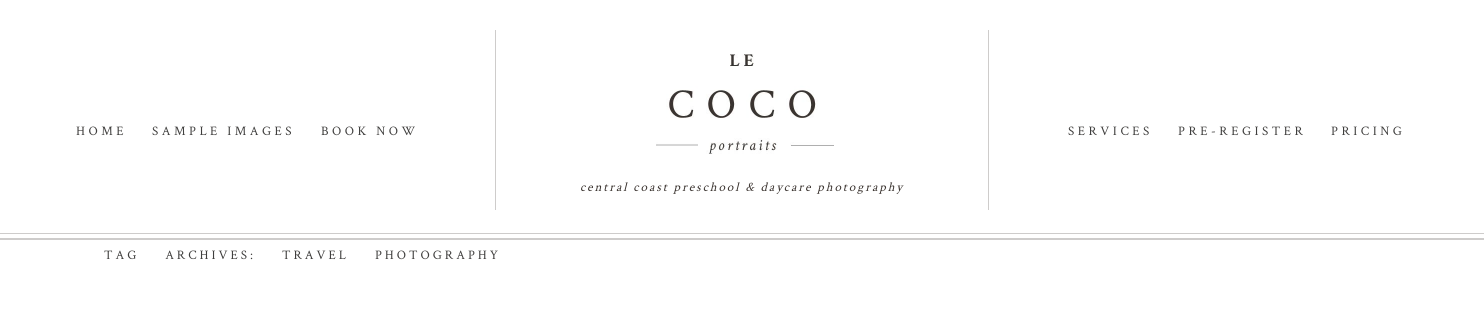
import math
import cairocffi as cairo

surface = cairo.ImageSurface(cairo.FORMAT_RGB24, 1484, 326)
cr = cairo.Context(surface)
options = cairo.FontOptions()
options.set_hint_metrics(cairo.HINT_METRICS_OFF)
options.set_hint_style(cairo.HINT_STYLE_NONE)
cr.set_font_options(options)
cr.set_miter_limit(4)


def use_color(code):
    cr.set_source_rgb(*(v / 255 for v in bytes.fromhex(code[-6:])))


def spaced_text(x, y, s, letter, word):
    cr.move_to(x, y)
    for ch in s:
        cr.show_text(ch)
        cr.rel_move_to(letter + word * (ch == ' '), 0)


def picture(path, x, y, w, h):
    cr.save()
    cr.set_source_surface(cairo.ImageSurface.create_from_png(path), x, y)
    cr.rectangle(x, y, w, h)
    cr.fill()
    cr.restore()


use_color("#ffffff")
cr.paint()
picture("img1.png", 0, 233, 1484, 7)
cr.select_font_face("Crimson Text")
cr.set_font_size(13)
use_color("#3f3e3d")
spaced_text(76, 135, "HOME", 3.5, 0)
spaced_text(152, 135, "SAMPLE IMAGES", 3.5, 0)
spaced_text(321, 135, "BOOK NOW", 3.5, 0)
spaced_text(1068, 135, "SERVICES", 3.5, 0)
spaced_text(1178, 135, "PRE-REGISTER", 3.5, 0)
spaced_text(1331, 135, "PRICING", 3.5, 0)
use_color("#cecccb")
cr.rectangle(988, 30, 1, 180)
cr.fill()
cr.rectangle(495, 30, 1, 180)
cr.fill()
picture("img2.png", 656, 54, 178, 100)
cr.select_font_face("Crimson Text", cairo.FONT_SLANT_ITALIC)
use_color("#3b3430")
spaced_text(580, 191, "central coast preschool & daycare photography", 1.95, 0)
cr.select_font_face("Crimson Text")
use_color("#3f3e3d")
spaced_text(104, 259, "TAG ARCHIVES:", 3, 20)
spaced_text(282, 259, "TRAVEL PHOTOGRAPHY", 3, 20)
surface.write_to_png("result.png")
